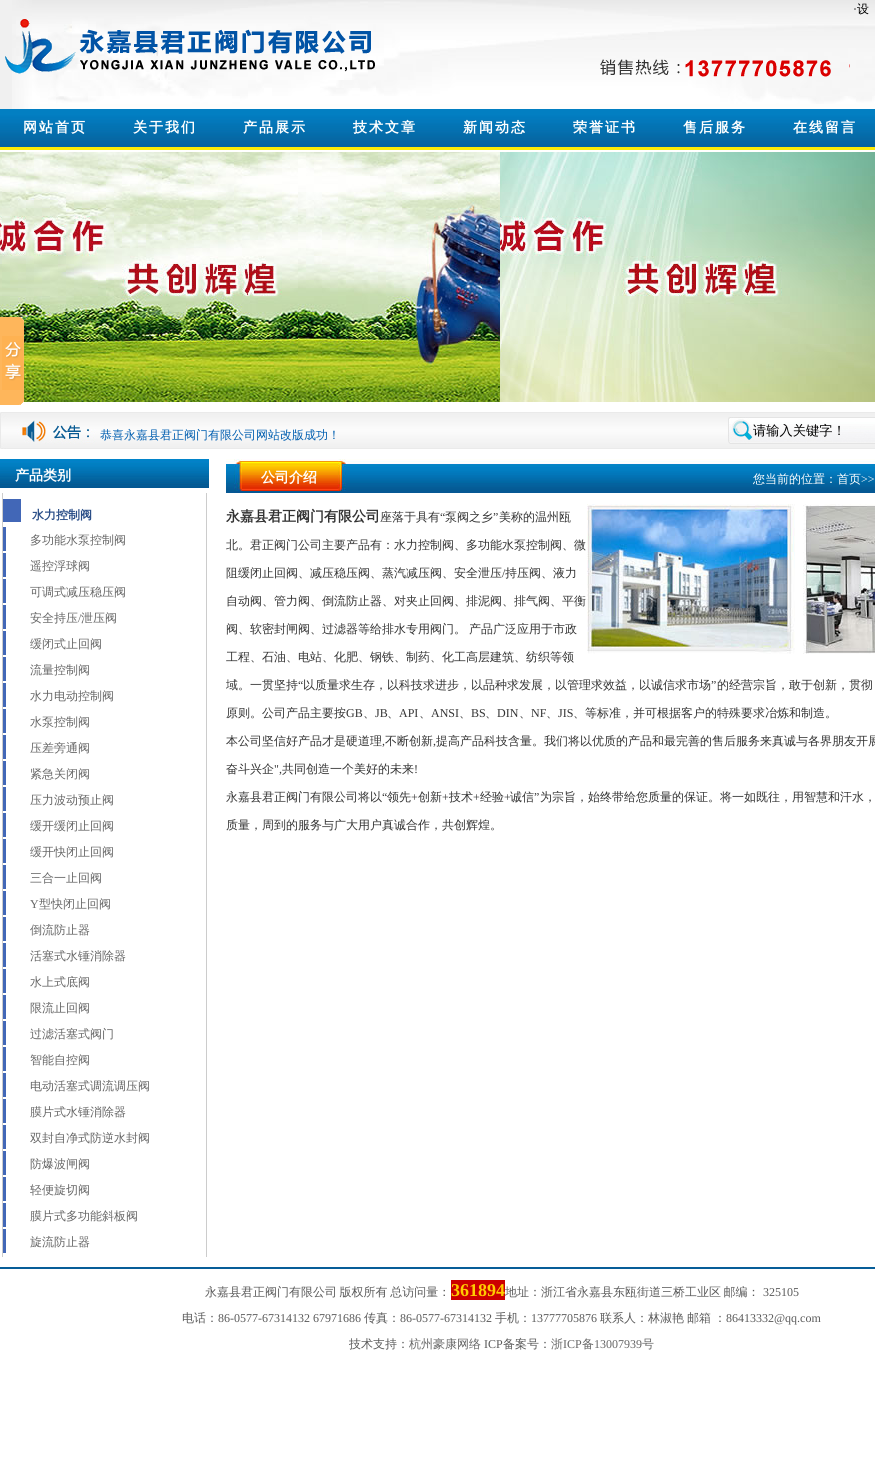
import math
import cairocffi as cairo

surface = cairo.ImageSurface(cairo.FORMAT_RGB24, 875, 1464)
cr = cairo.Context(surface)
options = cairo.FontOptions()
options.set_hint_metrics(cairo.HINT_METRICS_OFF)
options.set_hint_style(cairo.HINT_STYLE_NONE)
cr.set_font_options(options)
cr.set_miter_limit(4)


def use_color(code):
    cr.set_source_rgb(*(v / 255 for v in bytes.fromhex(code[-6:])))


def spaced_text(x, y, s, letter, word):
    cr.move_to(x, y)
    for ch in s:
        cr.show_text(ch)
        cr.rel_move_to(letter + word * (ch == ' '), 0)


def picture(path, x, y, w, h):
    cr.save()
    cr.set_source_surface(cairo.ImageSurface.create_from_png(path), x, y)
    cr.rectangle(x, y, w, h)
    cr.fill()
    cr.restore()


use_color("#ffffff")
cr.paint()
picture("img1.png", 0, 0, 875, 150)
picture("img2.png", 12, 0, 863, 109)
cr.select_font_face("Liberation Serif")
cr.set_font_size(12)
use_color("#000000")
cr.move_to(853, 13)
cr.show_text("·")
cr.select_font_face("WenQuanYi Zen Hei Medium")
cr.move_to(857, 13)
cr.show_text("设")
picture("img3.png", 5, 19, 370, 55)
picture("img4.png", 600, 59, 250, 18)
cr.select_font_face("WenQuanYi Zen Hei", cairo.FONT_SLANT_NORMAL, cairo.FONT_WEIGHT_BOLD)
cr.set_font_size(14)
use_color("#ffffff")
spaced_text(23, 132, "网站首页", 2, 0)
spaced_text(133, 132, "关于我们", 2, 0)
spaced_text(243, 132, "产品展示", 2, 0)
spaced_text(353, 132, "技术文章", 2, 0)
spaced_text(463, 132, "新闻动态", 2, 0)
spaced_text(573, 132, "荣誉证书", 2, 0)
spaced_text(683, 132, "售后服务", 2, 0)
spaced_text(793, 132, "在线留言", 2, 0)
picture("img5.png", 0, 152, 500, 250)
picture("img6.png", 500, 152, 375, 250)
picture("img7.png", 0, 317, 24, 88)
picture("img8.png", 0, 412, 875, 37)
cr.select_font_face("WenQuanYi Zen Hei Medium")
cr.set_font_size(12)
use_color("#005eb0")
cr.move_to(100, 439)
cr.show_text("恭喜永嘉县君正阀门有限公司网站改版成功！")
picture("img9.png", 728, 417, 147, 27)
cr.set_font_size(13.25)
use_color("#000000")
cr.move_to(753, 435)
cr.show_text("请输入关键字！")
picture("img10.png", 0, 459, 209, 29)
cr.select_font_face("WenQuanYi Zen Hei", cairo.FONT_SLANT_NORMAL, cairo.FONT_WEIGHT_BOLD)
cr.set_font_size(14)
use_color("#ffffff")
cr.move_to(15, 480)
cr.show_text("产品类别")
use_color("#cccccc")
cr.rectangle(206, 493, 1, 764)
cr.fill()
cr.rectangle(2, 493, 1, 764)
cr.fill()
use_color("#4267b7")
cr.rectangle(3, 499, 18, 23)
cr.fill()
cr.set_font_size(12)
use_color("#294d87")
cr.move_to(32, 519)
cr.show_text("水力控制阀")
use_color("#4267b7")
cr.rectangle(3, 527, 3, 24)
cr.fill()
cr.select_font_face("WenQuanYi Zen Hei Medium")
use_color("#666666")
cr.move_to(30, 544)
cr.show_text("多功能水泵控制阀")
use_color("#4267b7")
cr.rectangle(3, 553, 3, 24)
cr.fill()
use_color("#666666")
cr.move_to(30, 570)
cr.show_text("遥控浮球阀")
use_color("#4267b7")
cr.rectangle(3, 579, 3, 24)
cr.fill()
use_color("#666666")
cr.move_to(30, 596)
cr.show_text("可调式减压稳压阀")
use_color("#4267b7")
cr.rectangle(3, 605, 3, 24)
cr.fill()
use_color("#666666")
cr.move_to(30, 622)
cr.show_text("安全持压")
cr.select_font_face("Liberation Serif")
cr.move_to(78, 622)
cr.show_text("/")
cr.select_font_face("WenQuanYi Zen Hei Medium")
cr.move_to(81, 622)
cr.show_text("泄压阀")
use_color("#4267b7")
cr.rectangle(3, 631, 3, 24)
cr.fill()
use_color("#666666")
cr.move_to(30, 648)
cr.show_text("缓闭式止回阀")
use_color("#4267b7")
cr.rectangle(3, 657, 3, 24)
cr.fill()
use_color("#666666")
cr.move_to(30, 674)
cr.show_text("流量控制阀")
use_color("#4267b7")
cr.rectangle(3, 683, 3, 24)
cr.fill()
use_color("#666666")
cr.move_to(30, 700)
cr.show_text("水力电动控制阀")
use_color("#4267b7")
cr.rectangle(3, 709, 3, 24)
cr.fill()
use_color("#666666")
cr.move_to(30, 726)
cr.show_text("水泵控制阀")
use_color("#4267b7")
cr.rectangle(3, 735, 3, 24)
cr.fill()
use_color("#666666")
cr.move_to(30, 752)
cr.show_text("压差旁通阀")
use_color("#4267b7")
cr.rectangle(3, 761, 3, 24)
cr.fill()
use_color("#666666")
cr.move_to(30, 778)
cr.show_text("紧急关闭阀")
use_color("#4267b7")
cr.rectangle(3, 787, 3, 24)
cr.fill()
use_color("#666666")
cr.move_to(30, 804)
cr.show_text("压力波动预止阀")
use_color("#4267b7")
cr.rectangle(3, 813, 3, 24)
cr.fill()
use_color("#666666")
cr.move_to(30, 830)
cr.show_text("缓开缓闭止回阀")
use_color("#4267b7")
cr.rectangle(3, 839, 3, 24)
cr.fill()
use_color("#666666")
cr.move_to(30, 856)
cr.show_text("缓开快闭止回阀")
use_color("#4267b7")
cr.rectangle(3, 865, 3, 24)
cr.fill()
use_color("#666666")
cr.move_to(30, 882)
cr.show_text("三合一止回阀")
use_color("#4267b7")
cr.rectangle(3, 891, 3, 24)
cr.fill()
cr.select_font_face("Liberation Serif")
use_color("#666666")
cr.move_to(30, 908)
cr.show_text("Y")
cr.select_font_face("WenQuanYi Zen Hei Medium")
cr.move_to(39, 908)
cr.show_text("型快闭止回阀")
use_color("#4267b7")
cr.rectangle(3, 917, 3, 24)
cr.fill()
use_color("#666666")
cr.move_to(30, 934)
cr.show_text("倒流防止器")
use_color("#4267b7")
cr.rectangle(3, 943, 3, 24)
cr.fill()
use_color("#666666")
cr.move_to(30, 960)
cr.show_text("活塞式水锤消除器")
use_color("#4267b7")
cr.rectangle(3, 969, 3, 24)
cr.fill()
use_color("#666666")
cr.move_to(30, 986)
cr.show_text("水上式底阀")
use_color("#4267b7")
cr.rectangle(3, 995, 3, 24)
cr.fill()
use_color("#666666")
cr.move_to(30, 1012)
cr.show_text("限流止回阀")
use_color("#4267b7")
cr.rectangle(3, 1021, 3, 24)
cr.fill()
use_color("#666666")
cr.move_to(30, 1038)
cr.show_text("过滤活塞式阀门")
use_color("#4267b7")
cr.rectangle(3, 1047, 3, 24)
cr.fill()
use_color("#666666")
cr.move_to(30, 1064)
cr.show_text("智能自控阀")
use_color("#4267b7")
cr.rectangle(3, 1073, 3, 24)
cr.fill()
use_color("#666666")
cr.move_to(30, 1090)
cr.show_text("电动活塞式调流调压阀")
use_color("#4267b7")
cr.rectangle(3, 1099, 3, 24)
cr.fill()
use_color("#666666")
cr.move_to(30, 1116)
cr.show_text("膜片式水锤消除器")
use_color("#4267b7")
cr.rectangle(3, 1125, 3, 24)
cr.fill()
use_color("#666666")
cr.move_to(30, 1142)
cr.show_text("双封自净式防逆水封阀")
use_color("#4267b7")
cr.rectangle(3, 1151, 3, 24)
cr.fill()
use_color("#666666")
cr.move_to(30, 1168)
cr.show_text("防爆波闸阀")
use_color("#4267b7")
cr.rectangle(3, 1177, 3, 24)
cr.fill()
use_color("#666666")
cr.move_to(30, 1194)
cr.show_text("轻便旋切阀")
use_color("#4267b7")
cr.rectangle(3, 1203, 3, 24)
cr.fill()
use_color("#666666")
cr.move_to(30, 1220)
cr.show_text("膜片式多功能斜板阀")
use_color("#4267b7")
cr.rectangle(3, 1229, 3, 24)
cr.fill()
use_color("#666666")
cr.move_to(30, 1246)
cr.show_text("旋流防止器")
picture("img11.png", 226, 459, 649, 34)
cr.select_font_face("WenQuanYi Zen Hei", cairo.FONT_SLANT_NORMAL, cairo.FONT_WEIGHT_BOLD)
cr.set_font_size(14)
use_color("#ffffff")
cr.move_to(261, 482)
cr.show_text("公司介绍")
cr.select_font_face("WenQuanYi Zen Hei Medium")
cr.set_font_size(12)
cr.move_to(753, 483)
cr.show_text("您当前的位置：首页")
cr.select_font_face("Liberation Serif")
cr.move_to(861, 483)
cr.show_text(">>")
picture("img12.png", 587, 504, 288, 150)
cr.select_font_face("WenQuanYi Zen Hei", cairo.FONT_SLANT_NORMAL, cairo.FONT_WEIGHT_BOLD)
cr.set_font_size(14)
use_color("#333333")
cr.move_to(226, 521)
cr.show_text("永嘉县君正阀门有限公司")
cr.select_font_face("WenQuanYi Zen Hei Medium")
cr.set_font_size(12)
cr.move_to(380, 521)
cr.show_text("座落于具有")
cr.select_font_face("Liberation Serif")
cr.move_to(440, 521)
cr.show_text("“")
cr.select_font_face("WenQuanYi Zen Hei Medium")
cr.move_to(445, 521)
cr.show_text("泵阀之乡")
cr.select_font_face("Liberation Serif")
cr.move_to(493, 521)
cr.show_text("”")
cr.select_font_face("WenQuanYi Zen Hei Medium")
cr.move_to(499, 521)
cr.show_text("美称的温州瓯")
cr.move_to(226, 549)
cr.show_text("北。君正阀门公司主要产品有：水力控制阀、多功能水泵控制阀、微")
cr.move_to(226, 577)
cr.show_text("阻缓闭止回阀、减压稳压阀、蒸汽减压阀、安全泄压")
cr.select_font_face("Liberation Serif")
cr.move_to(502, 577)
cr.show_text("/")
cr.select_font_face("WenQuanYi Zen Hei Medium")
cr.move_to(505, 577)
cr.show_text("持压阀、液力")
cr.move_to(226, 605)
cr.show_text("自动阀、管力阀、倒流防止器、对夹止回阀、排泥阀、排气阀、平衡")
cr.move_to(226, 633)
cr.show_text("阀、软密封闸阀、过滤器等给排水专用阀门。")
cr.move_to(469, 633)
cr.show_text("产品广泛应用于市政")
cr.move_to(226, 661)
cr.show_text("工程、石油、电站、化肥、钢铁、制药、化工高层建筑、纺织等领")
cr.move_to(226, 689)
cr.show_text("域。一贯坚持")
cr.select_font_face("Liberation Serif")
cr.move_to(298, 689)
cr.show_text("“")
cr.select_font_face("WenQuanYi Zen Hei Medium")
cr.move_to(303, 689)
cr.show_text("以质量求生存，以科技求进步，以品种求发展，以管理求效益，以诚信求市场")
cr.select_font_face("Liberation Serif")
cr.move_to(711, 689)
cr.show_text("”")
cr.select_font_face("WenQuanYi Zen Hei Medium")
cr.move_to(717, 689)
cr.show_text("的经营宗旨，敢于创新，贯彻")
cr.move_to(226, 717)
cr.show_text("原则。公司产品主要按")
cr.select_font_face("Liberation Serif")
cr.move_to(346, 717)
cr.show_text("GB")
cr.select_font_face("WenQuanYi Zen Hei Medium")
cr.move_to(363, 717)
cr.show_text("、")
cr.select_font_face("Liberation Serif")
cr.move_to(375, 717)
cr.show_text("JB")
cr.select_font_face("WenQuanYi Zen Hei Medium")
cr.move_to(387, 717)
cr.show_text("、")
cr.select_font_face("Liberation Serif")
cr.move_to(399, 717)
cr.show_text("API")
cr.select_font_face("WenQuanYi Zen Hei Medium")
cr.move_to(419, 717)
cr.show_text("、")
cr.select_font_face("Liberation Serif")
cr.move_to(431, 717)
cr.show_text("ANSI")
cr.select_font_face("WenQuanYi Zen Hei Medium")
cr.move_to(459, 717)
cr.show_text("、")
cr.select_font_face("Liberation Serif")
cr.move_to(471, 717)
cr.show_text("BS")
cr.select_font_face("WenQuanYi Zen Hei Medium")
cr.move_to(485, 717)
cr.show_text("、")
cr.select_font_face("Liberation Serif")
cr.move_to(497, 717)
cr.show_text("DIN")
cr.select_font_face("WenQuanYi Zen Hei Medium")
cr.move_to(519, 717)
cr.show_text("、")
cr.select_font_face("Liberation Serif")
cr.move_to(531, 717)
cr.show_text("NF")
cr.select_font_face("WenQuanYi Zen Hei Medium")
cr.move_to(546, 717)
cr.show_text("、")
cr.select_font_face("Liberation Serif")
cr.move_to(558, 717)
cr.show_text("JIS")
cr.select_font_face("WenQuanYi Zen Hei Medium")
cr.move_to(573, 717)
cr.show_text("、等标准，并可根据客户的特殊要求冶炼和制造。")
cr.move_to(226, 745)
cr.show_text("本公司坚信好产品才是硬道理")
cr.select_font_face("Liberation Serif")
cr.move_to(382, 745)
cr.show_text(",")
cr.select_font_face("WenQuanYi Zen Hei Medium")
cr.move_to(385, 745)
cr.show_text("不断创新")
cr.select_font_face("Liberation Serif")
cr.move_to(433, 745)
cr.show_text(",")
cr.select_font_face("WenQuanYi Zen Hei Medium")
cr.move_to(436, 745)
cr.show_text("提高产品科技含量。我们将以优质的产品和最完善的售后服务来真诚与各界朋友开展")
cr.move_to(226, 773)
cr.show_text("奋斗兴企")
cr.select_font_face("Liberation Serif")
cr.move_to(274, 773)
cr.show_text("\",")
cr.select_font_face("WenQuanYi Zen Hei Medium")
cr.move_to(282, 773)
cr.show_text("共同创造一个美好的未来")
cr.select_font_face("Liberation Serif")
cr.move_to(414, 773)
cr.show_text("!")
cr.select_font_face("WenQuanYi Zen Hei Medium")
cr.move_to(226, 801)
cr.show_text("永嘉县君正阀门有限公司将以")
cr.select_font_face("Liberation Serif")
cr.move_to(382, 801)
cr.show_text("“")
cr.select_font_face("WenQuanYi Zen Hei Medium")
cr.move_to(387, 801)
cr.show_text("领先")
cr.select_font_face("Liberation Serif")
cr.move_to(411, 801)
cr.show_text("+")
cr.select_font_face("WenQuanYi Zen Hei Medium")
cr.move_to(418, 801)
cr.show_text("创新")
cr.select_font_face("Liberation Serif")
cr.move_to(442, 801)
cr.show_text("+")
cr.select_font_face("WenQuanYi Zen Hei Medium")
cr.move_to(449, 801)
cr.show_text("技术")
cr.select_font_face("Liberation Serif")
cr.move_to(473, 801)
cr.show_text("+")
cr.select_font_face("WenQuanYi Zen Hei Medium")
cr.move_to(480, 801)
cr.show_text("经验")
cr.select_font_face("Liberation Serif")
cr.move_to(504, 801)
cr.show_text("+")
cr.select_font_face("WenQuanYi Zen Hei Medium")
cr.move_to(510, 801)
cr.show_text("诚信")
cr.select_font_face("Liberation Serif")
cr.move_to(534, 801)
cr.show_text("”")
cr.select_font_face("WenQuanYi Zen Hei Medium")
cr.move_to(540, 801)
cr.show_text("为宗旨，始终带给您质量的保证。将一如既往，用智慧和汗水，")
cr.move_to(226, 829)
cr.show_text("质量，周到的服务与广大用户真诚合作，共创辉煌。")
use_color("#075d98")
cr.rectangle(0, 1267, 875, 2)
cr.fill()
use_color("#5a5a5a")
spaced_text(205, 1296, "永嘉县君正阀门有限公司 版权所有 总访问量：", 0, -1)
use_color("#cc0000")
cr.rectangle(451, 1280, 54, 20)
cr.fill()
cr.select_font_face("Liberation Serif", cairo.FONT_SLANT_NORMAL, cairo.FONT_WEIGHT_BOLD)
cr.set_font_size(18)
use_color("#ffcc00")
cr.move_to(451, 1296)
cr.show_text("361894")
cr.select_font_face("WenQuanYi Zen Hei Medium")
cr.set_font_size(12)
use_color("#5a5a5a")
spaced_text(505, 1296, "地址：浙江省永嘉县东瓯街道三桥工业区 邮编：", 0, -1)
cr.select_font_face("Liberation Serif")
cr.move_to(763, 1296)
cr.show_text("325105")
cr.select_font_face("WenQuanYi Zen Hei Medium")
cr.move_to(182, 1322)
cr.show_text("电话：")
cr.select_font_face("Liberation Serif")
cr.move_to(218, 1322)
cr.show_text("86-0577-67314132 67971686")
cr.select_font_face("WenQuanYi Zen Hei Medium")
cr.move_to(364, 1322)
cr.show_text("传真：")
cr.select_font_face("Liberation Serif")
cr.move_to(400, 1322)
cr.show_text("86-0577-67314132")
cr.select_font_face("WenQuanYi Zen Hei Medium")
cr.move_to(495, 1322)
cr.show_text("手机：")
cr.select_font_face("Liberation Serif")
cr.move_to(531, 1322)
cr.show_text("13777705876")
cr.select_font_face("WenQuanYi Zen Hei Medium")
cr.move_to(600, 1322)
cr.show_text("联系人：林淑艳")
cr.move_to(687, 1322)
cr.show_text("邮箱")
cr.move_to(714, 1322)
cr.show_text("：")
cr.select_font_face("Liberation Serif")
cr.move_to(726, 1322)
cr.show_text("86413332@qq.com")
cr.select_font_face("WenQuanYi Zen Hei Medium")
cr.move_to(349, 1348)
cr.show_text("技术支持：")
use_color("#666666")
cr.move_to(409, 1348)
cr.show_text("杭州豪康网络")
cr.select_font_face("Liberation Serif")
use_color("#5a5a5a")
cr.move_to(484, 1348)
cr.show_text("ICP")
cr.select_font_face("WenQuanYi Zen Hei Medium")
cr.move_to(503, 1348)
cr.show_text("备案号：")
use_color("#666666")
cr.move_to(551, 1348)
cr.show_text("浙")
cr.select_font_face("Liberation Serif")
cr.move_to(563, 1348)
cr.show_text("ICP")
cr.select_font_face("WenQuanYi Zen Hei Medium")
cr.move_to(582, 1348)
cr.show_text("备")
cr.select_font_face("Liberation Serif")
cr.move_to(594, 1348)
cr.show_text("13007939")
cr.select_font_face("WenQuanYi Zen Hei Medium")
cr.move_to(642, 1348)
cr.show_text("号")
surface.write_to_png("result.png")
